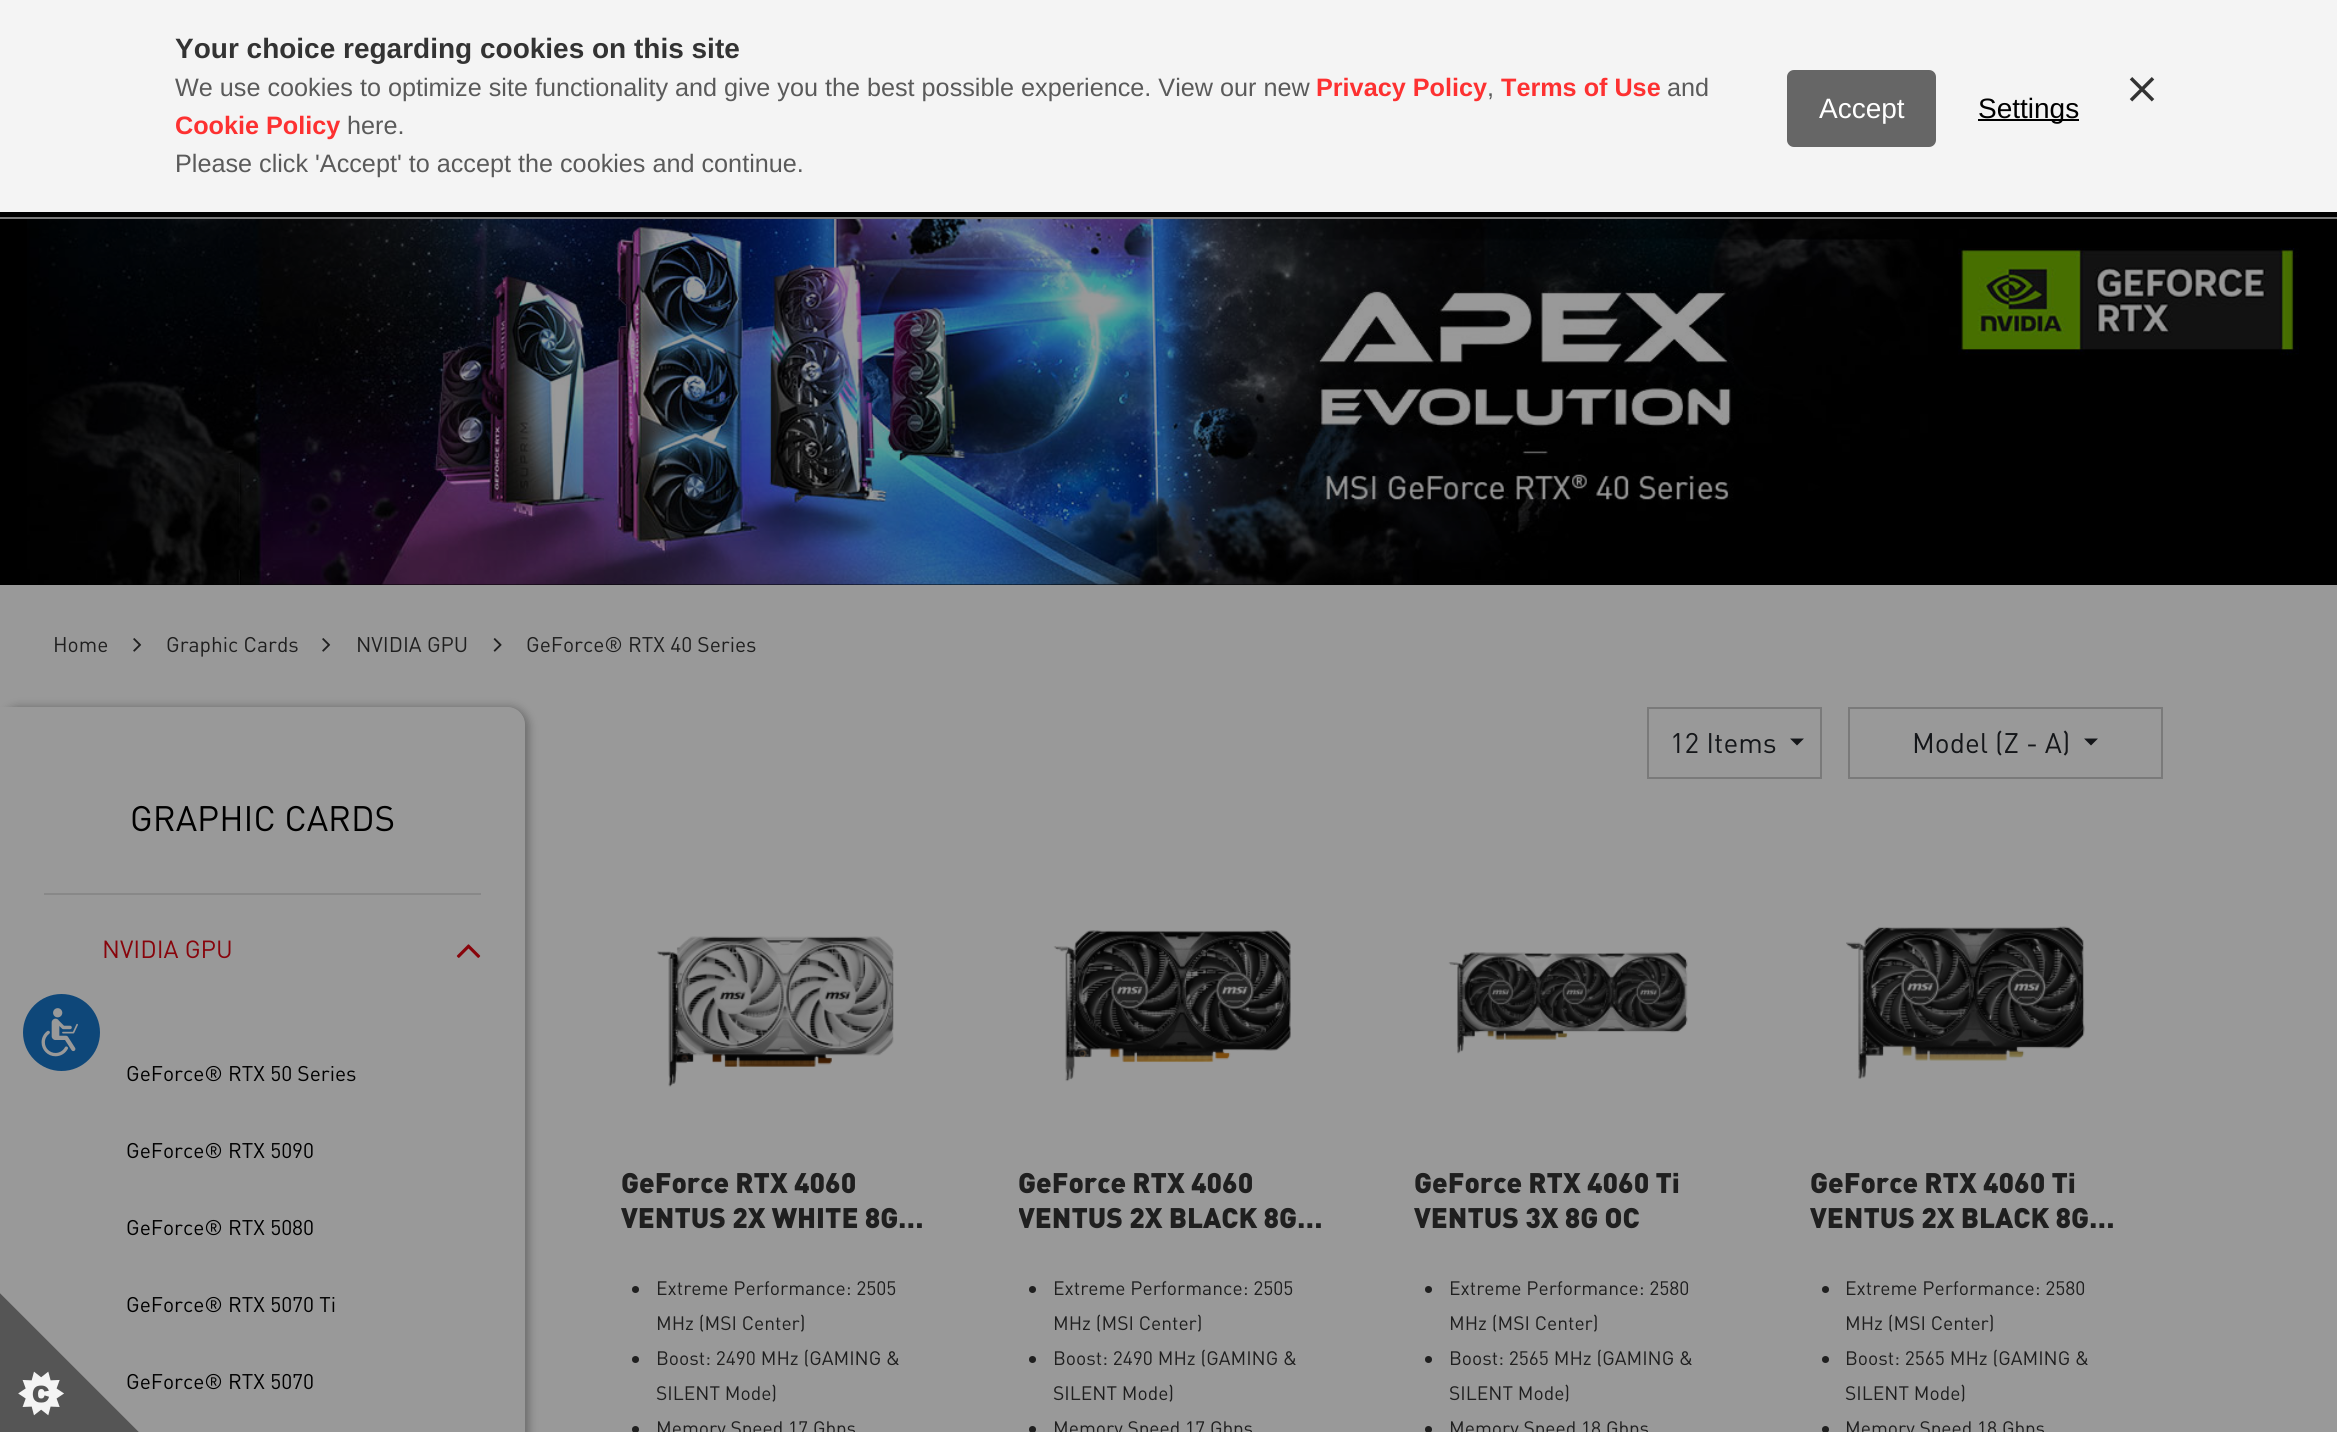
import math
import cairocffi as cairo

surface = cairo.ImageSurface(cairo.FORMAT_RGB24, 2337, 1432)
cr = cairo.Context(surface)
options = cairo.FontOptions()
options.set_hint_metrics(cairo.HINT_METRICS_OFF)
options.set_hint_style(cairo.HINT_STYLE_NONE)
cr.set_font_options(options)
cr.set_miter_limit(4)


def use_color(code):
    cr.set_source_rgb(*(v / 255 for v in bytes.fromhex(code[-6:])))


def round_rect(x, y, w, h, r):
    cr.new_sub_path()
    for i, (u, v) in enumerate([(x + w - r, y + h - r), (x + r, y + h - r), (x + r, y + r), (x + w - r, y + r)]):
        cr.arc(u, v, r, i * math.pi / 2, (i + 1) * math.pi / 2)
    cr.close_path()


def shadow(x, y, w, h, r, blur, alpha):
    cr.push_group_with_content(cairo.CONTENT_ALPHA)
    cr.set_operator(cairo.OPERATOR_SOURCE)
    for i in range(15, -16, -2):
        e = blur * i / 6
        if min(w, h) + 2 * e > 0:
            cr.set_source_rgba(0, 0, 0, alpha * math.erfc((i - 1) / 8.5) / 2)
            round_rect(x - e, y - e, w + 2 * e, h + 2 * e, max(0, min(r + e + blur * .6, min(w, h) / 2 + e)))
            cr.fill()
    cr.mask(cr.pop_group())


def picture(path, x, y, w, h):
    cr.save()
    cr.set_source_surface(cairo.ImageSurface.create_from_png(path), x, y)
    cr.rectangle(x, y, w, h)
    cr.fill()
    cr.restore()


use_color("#999999")
cr.paint()
use_color("#f4f4f4")
cr.rectangle(0, 0, 2337, 212)
cr.fill()
cr.select_font_face("Liberation Sans", cairo.FONT_SLANT_NORMAL, cairo.FONT_WEIGHT_BOLD)
cr.set_font_size(28)
use_color("#333333")
cr.move_to(175, 58)
cr.show_text("Your choice regarding cookies on this site")
cr.select_font_face("Liberation Sans")
cr.set_font_size(25.2)
use_color("#5a5a5a")
cr.move_to(175, 96)
cr.show_text("We use cookies to optimize site functionality and give you the best possible experience. View our new")
cr.select_font_face("Liberation Sans", cairo.FONT_SLANT_NORMAL, cairo.FONT_WEIGHT_BOLD)
use_color("#fd3131")
cr.move_to(1316, 96)
cr.show_text("Privacy Policy")
cr.select_font_face("Liberation Sans")
use_color("#5a5a5a")
cr.move_to(1487, 96)
cr.show_text(",")
cr.select_font_face("Liberation Sans", cairo.FONT_SLANT_NORMAL, cairo.FONT_WEIGHT_BOLD)
use_color("#fd3131")
cr.move_to(1501, 96)
cr.show_text("Terms of Use")
cr.select_font_face("Liberation Sans")
use_color("#5a5a5a")
cr.move_to(1667, 96)
cr.show_text("and")
cr.select_font_face("Liberation Sans", cairo.FONT_SLANT_NORMAL, cairo.FONT_WEIGHT_BOLD)
use_color("#fd3131")
cr.move_to(175, 134)
cr.show_text("Cookie Policy")
cr.select_font_face("Liberation Sans")
use_color("#5a5a5a")
cr.move_to(347, 134)
cr.show_text("here.")
cr.move_to(175, 172)
cr.show_text("Please click 'Accept' to accept the cookies and continue.")
picture("img1.png", 2129, 77, 26, 25)
use_color("#666666")
round_rect(1789, 72, 145, 73, 5)
cr.fill_preserve()
cr.set_line_width(4)
cr.stroke()
cr.set_font_size(28)
use_color("#ffffff")
cr.move_to(1819, 118)
cr.show_text("Accept")
use_color("#000000")
cr.rectangle(1978, 119, 101, 2)
cr.fill()
cr.move_to(1978, 118)
cr.show_text("Settings")
cr.save()
cr.set_fill_rule(cairo.FILL_RULE_EVEN_ODD)
cr.new_path()
cr.move_to(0, 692)
cr.line_to(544, 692)
cr.line_to(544, 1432)
cr.line_to(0, 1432)
cr.close_path()
cr.move_to(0, 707)
cr.line_to(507, 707)
cr.curve_to(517, 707, 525, 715, 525, 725)
cr.line_to(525, 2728)
cr.curve_to(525, 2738, 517, 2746, 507, 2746)
cr.line_to(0, 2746)
cr.close_path()
cr.clip()
use_color("#000000")
shadow(0, 707, 529, 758, 19, 4.5, 0.3)
cr.restore()
cr.select_font_face("DIN")
cr.set_font_size(21)
cr.move_to(126, 1312)
cr.show_text("GeForce® RTX 5070 Ti")
cr.move_to(126, 1389)
cr.show_text("GeForce® RTX 5070")
picture("img2.png", 0, 1293, 139, 139)
cr.rectangle(0, 212, 2337, 5)
cr.fill()
cr.rectangle(0, 219, 2337, 366)
cr.fill()
use_color("#7a7a7a")
cr.rectangle(0, 217, 2337, 2)
cr.fill()
picture("img3.png", 27, 219, 2272, 366)
use_color("#1f1f1f")
cr.move_to(53, 652)
cr.show_text("Home")
picture("img4.png", 133, 638, 9, 14)
cr.move_to(166, 652)
cr.show_text("Graphic Cards")
picture("img4.png", 322, 638, 9, 14)
cr.move_to(356, 652)
cr.show_text("NVIDIA GPU")
picture("img5.png", 493, 638, 9, 14)
cr.move_to(526, 652)
cr.show_text("GeForce® RTX 40 Series")
use_color("#0e4779")
cr.new_path()
cr.arc(61.5, 1032.5, 41, 0, 2 * math.pi)
cr.fill_preserve()
use_color("#999999")
cr.set_line_width(5)
cr.stroke()
picture("img6.png", 41, 1008, 37, 49)
cr.set_font_size(35)
use_color("#000000")
cr.move_to(130, 831)
cr.show_text("GRAPHIC CARDS")
use_color("#888888")
cr.rectangle(44, 893, 437, 2)
cr.fill()
cr.set_font_size(24.5)
use_color("#88040b")
cr.move_to(102, 958)
cr.show_text("NVIDIA GPU")
picture("img7.png", 456, 944, 25, 14)
cr.set_font_size(21)
use_color("#000000")
cr.move_to(126, 1081)
cr.show_text("GeForce® RTX 50 Series")
cr.move_to(126, 1158)
cr.show_text("GeForce® RTX 5090")
cr.move_to(126, 1235)
cr.show_text("GeForce® RTX 5080")
cr.rectangle(1648, 708, 173, 70)
use_color("#7a7a7a")
cr.set_line_width(2)
cr.stroke()
cr.set_font_size(28)
use_color("#141619")
cr.move_to(1670, 753)
cr.show_text("12 Items")
cr.new_path()
cr.move_to(1790, 738.5)
cr.line_to(1804, 738.5)
cr.line_to(1797, 745.5)
cr.close_path()
cr.fill()
cr.rectangle(1849, 708, 313, 70)
use_color("#7a7a7a")
cr.stroke()
use_color("#141619")
cr.move_to(1912, 753)
cr.show_text("Model (Z - A)")
cr.new_path()
cr.move_to(2084, 738.5)
cr.line_to(2098, 738.5)
cr.line_to(2091, 745.5)
cr.close_path()
cr.fill()
picture("img8.png", 657, 936, 237, 151)
cr.select_font_face("DIN Black")
use_color("#1f1f1f")
cr.move_to(621, 1193)
cr.show_text("GeForce RTX 4060")
cr.move_to(621, 1228)
cr.show_text("VENTUS 2X WHITE 8G…")
cr.new_path()
cr.arc(635.5, 1289.5, 3.5, 0, 2 * math.pi)
cr.fill()
cr.select_font_face("DIN")
cr.set_font_size(19.25)
cr.move_to(656, 1295)
cr.show_text("Extreme Performance: 2505")
cr.move_to(656, 1330)
cr.show_text("MHz (MSI Center)")
cr.new_path()
cr.arc(635.5, 1359.5, 3.5, 0, 2 * math.pi)
cr.fill()
cr.move_to(656, 1365)
cr.show_text("Boost: 2490 MHz (GAMING &")
cr.move_to(656, 1400)
cr.show_text("SILENT Mode)")
cr.new_path()
cr.arc(635.5, 1429.5, 3.5, 0, 2 * math.pi)
cr.fill()
cr.move_to(656, 1435)
cr.show_text("Memory Speed 17 Gbps")
picture("img9.png", 1053, 930, 238, 152)
cr.select_font_face("DIN Black")
cr.set_font_size(28)
cr.move_to(1018, 1193)
cr.show_text("GeForce RTX 4060")
cr.save()
cr.rectangle(1019, 1166, 308, 70)
cr.clip()
cr.move_to(1018, 1228)
cr.show_text("VENTUS 2X BLACK 8G…")
cr.restore()
cr.new_path()
cr.arc(1032.5, 1289.5, 3.5, 0, 2 * math.pi)
cr.fill()
cr.select_font_face("DIN")
cr.set_font_size(19.25)
cr.move_to(1053, 1295)
cr.show_text("Extreme Performance: 2505")
cr.move_to(1053, 1330)
cr.show_text("MHz (MSI Center)")
cr.new_path()
cr.arc(1032.5, 1359.5, 3.5, 0, 2 * math.pi)
cr.fill()
cr.move_to(1053, 1365)
cr.show_text("Boost: 2490 MHz (GAMING &")
cr.move_to(1053, 1400)
cr.show_text("SILENT Mode)")
cr.new_path()
cr.arc(1032.5, 1429.5, 3.5, 0, 2 * math.pi)
cr.fill()
cr.move_to(1053, 1435)
cr.show_text("Memory Speed 17 Gbps")
picture("img10.png", 1448, 952, 240, 102)
cr.select_font_face("DIN Black")
cr.set_font_size(28)
cr.move_to(1414, 1193)
cr.show_text("GeForce RTX 4060 Ti")
cr.move_to(1414, 1228)
cr.show_text("VENTUS 3X 8G OC")
cr.new_path()
cr.arc(1428.5, 1289.5, 3.5, 0, 2 * math.pi)
cr.fill()
cr.select_font_face("DIN")
cr.set_font_size(19.25)
cr.move_to(1449, 1295)
cr.show_text("Extreme Performance: 2580")
cr.move_to(1449, 1330)
cr.show_text("MHz (MSI Center)")
cr.new_path()
cr.arc(1428.5, 1359.5, 3.5, 0, 2 * math.pi)
cr.fill()
cr.move_to(1449, 1365)
cr.show_text("Boost: 2565 MHz (GAMING &")
cr.move_to(1449, 1400)
cr.show_text("SILENT Mode)")
cr.new_path()
cr.arc(1428.5, 1429.5, 3.5, 0, 2 * math.pi)
cr.fill()
cr.move_to(1449, 1435)
cr.show_text("Memory Speed 18 Gbps")
picture("img11.png", 1846, 926, 239, 153)
cr.select_font_face("DIN Black")
cr.set_font_size(28)
cr.move_to(1810, 1193)
cr.show_text("GeForce RTX 4060 Ti")
cr.move_to(1810, 1228)
cr.show_text("VENTUS 2X BLACK 8G…")
cr.new_path()
cr.arc(1825.5, 1289.5, 3.5, 0, 2 * math.pi)
cr.fill()
cr.select_font_face("DIN")
cr.set_font_size(19.25)
cr.move_to(1845, 1295)
cr.show_text("Extreme Performance: 2580")
cr.move_to(1845, 1330)
cr.show_text("MHz (MSI Center)")
cr.new_path()
cr.arc(1825.5, 1359.5, 3.5, 0, 2 * math.pi)
cr.fill()
cr.move_to(1845, 1365)
cr.show_text("Boost: 2565 MHz (GAMING &")
cr.move_to(1845, 1400)
cr.show_text("SILENT Mode)")
cr.new_path()
cr.arc(1825.5, 1429.5, 3.5, 0, 2 * math.pi)
cr.fill()
cr.move_to(1845, 1435)
cr.show_text("Memory Speed 18 Gbps")
surface.write_to_png("result.png")
